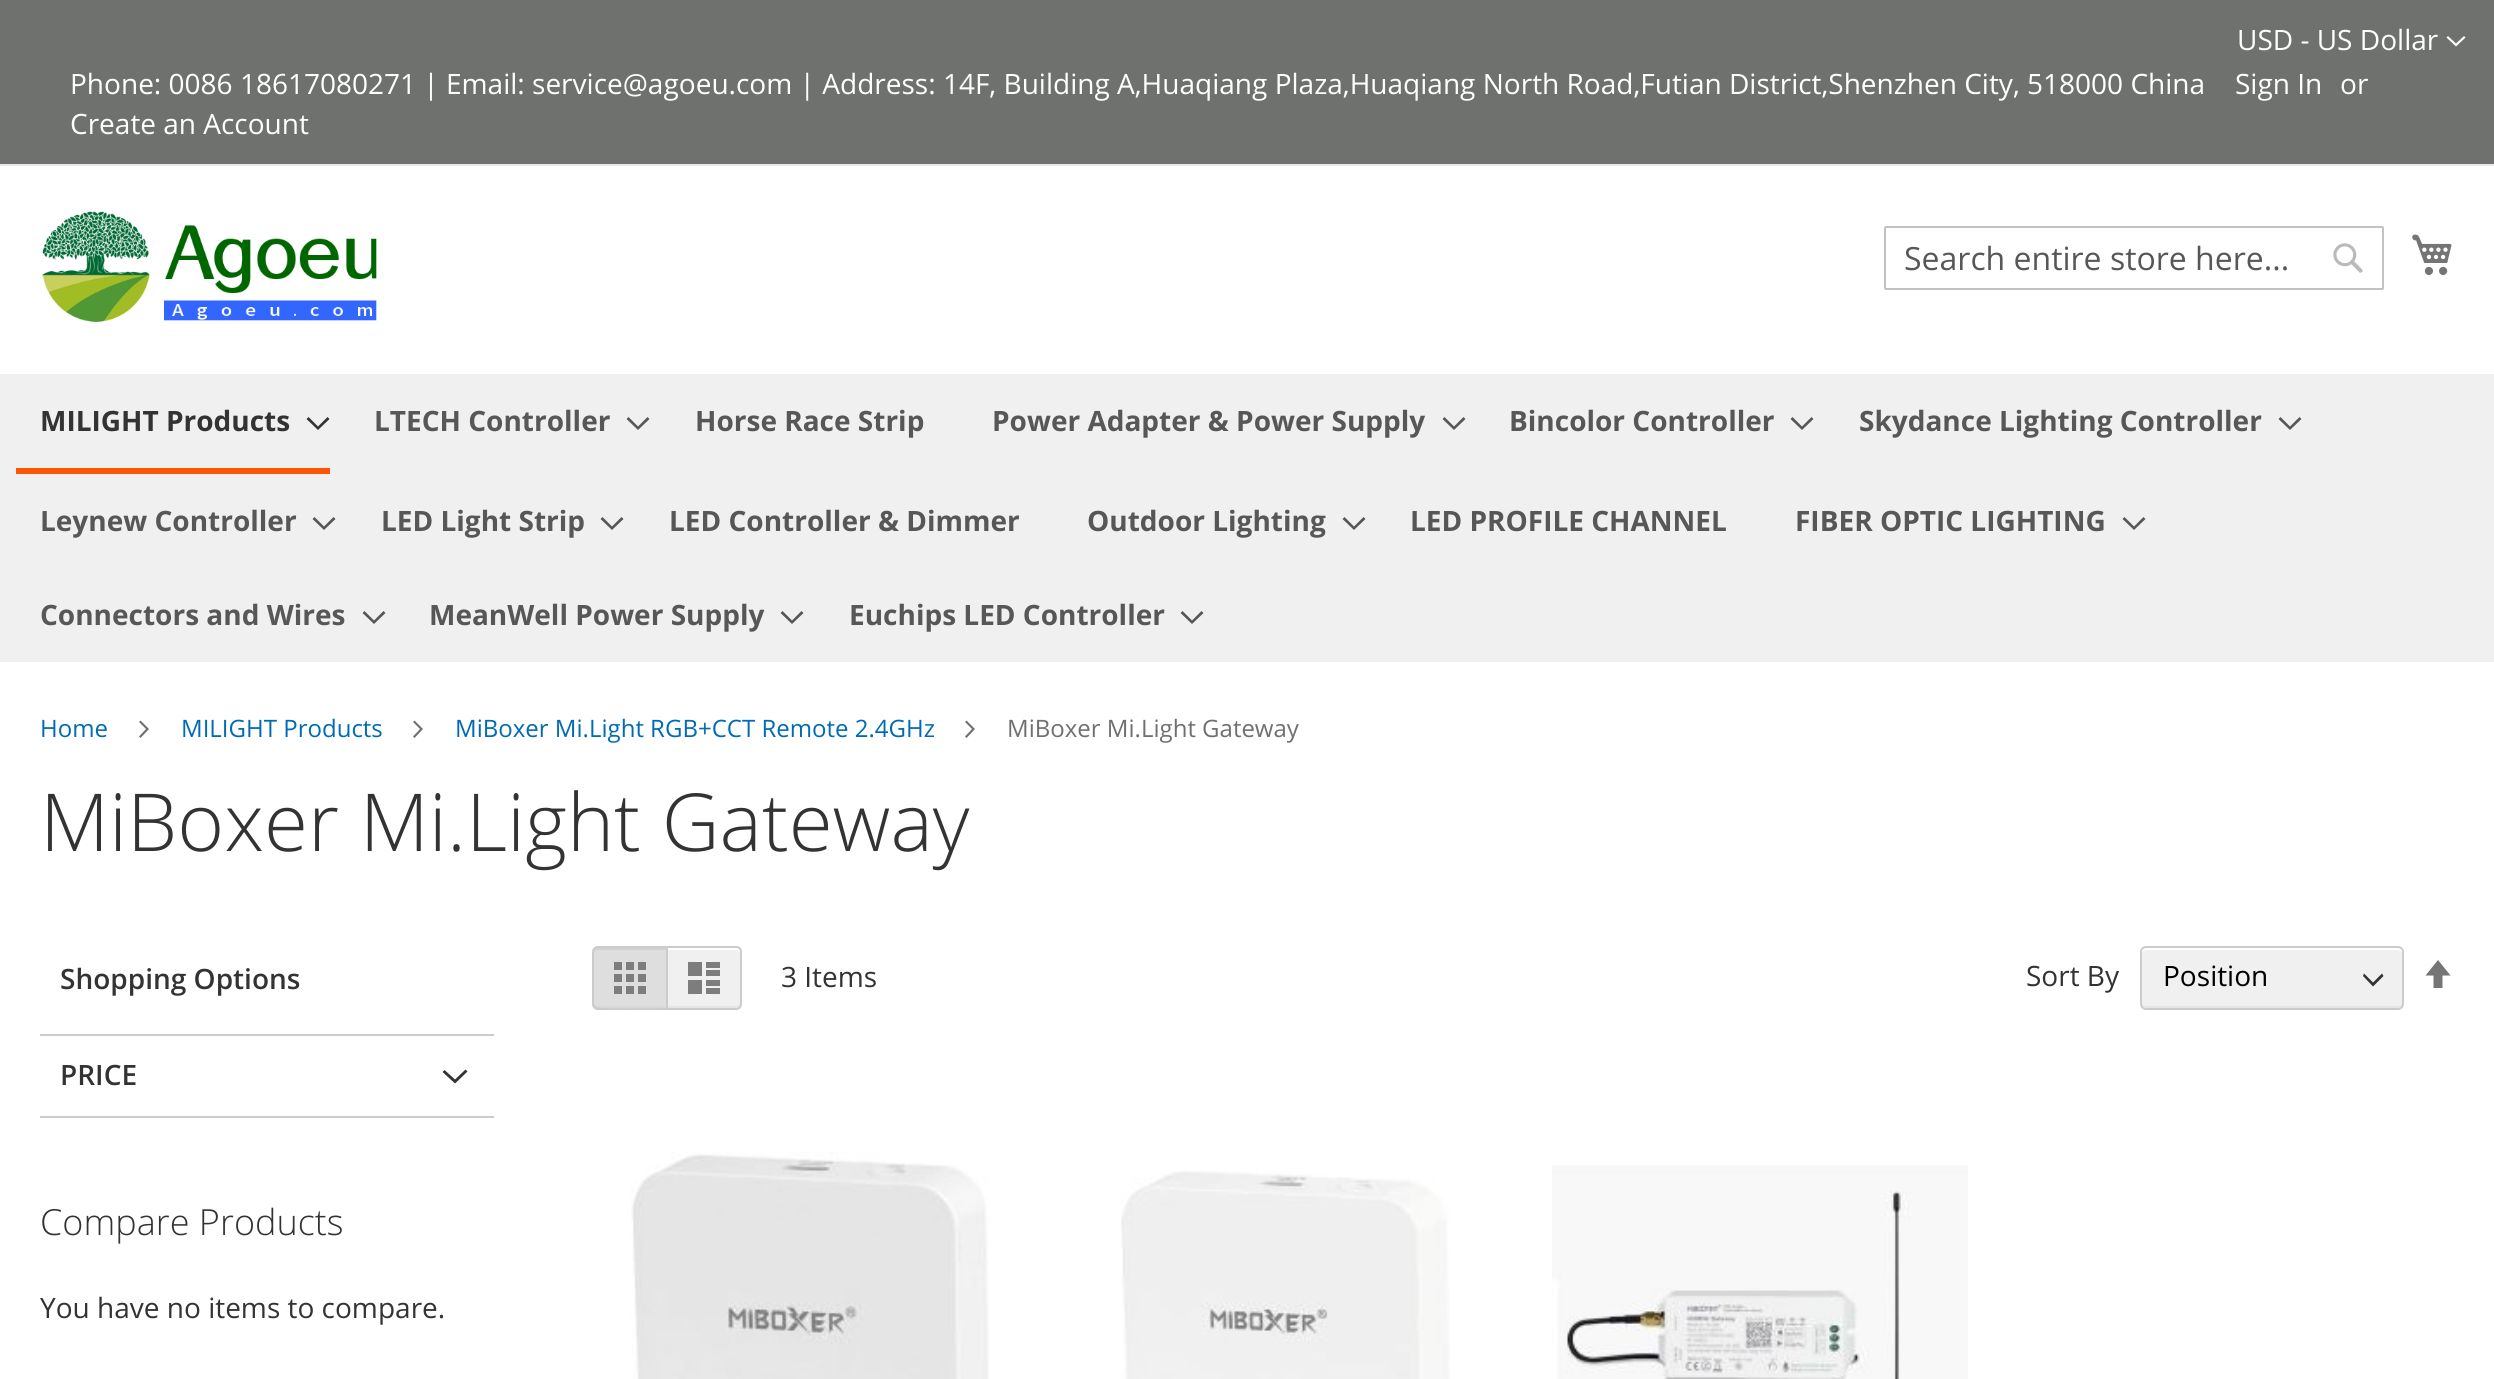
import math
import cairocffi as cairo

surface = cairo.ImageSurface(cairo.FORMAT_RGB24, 2494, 1379)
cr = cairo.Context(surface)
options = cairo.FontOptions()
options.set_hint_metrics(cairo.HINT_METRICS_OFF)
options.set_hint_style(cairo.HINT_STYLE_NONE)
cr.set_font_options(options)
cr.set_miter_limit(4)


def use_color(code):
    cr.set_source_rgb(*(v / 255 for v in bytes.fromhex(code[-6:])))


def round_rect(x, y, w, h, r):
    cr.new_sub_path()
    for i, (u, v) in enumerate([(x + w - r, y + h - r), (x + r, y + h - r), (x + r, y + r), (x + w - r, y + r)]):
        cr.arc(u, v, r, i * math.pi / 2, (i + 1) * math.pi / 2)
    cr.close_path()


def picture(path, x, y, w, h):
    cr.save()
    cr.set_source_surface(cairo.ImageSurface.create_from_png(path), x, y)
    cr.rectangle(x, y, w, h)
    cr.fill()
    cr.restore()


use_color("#ffffff")
cr.paint()
use_color("#6e716e")
cr.rectangle(0, 0, 2494, 164)
cr.fill()
use_color("#e8e8e8")
cr.rectangle(0, 164, 2494, 2)
cr.fill()
cr.select_font_face("Open Sans")
cr.set_font_size(28)
use_color("#ffffff")
cr.move_to(2237, 50)
cr.show_text("USD - US Dollar")
cr.new_path()
cr.move_to(2456, 43.5)
cr.line_to(2448, 36)
cr.line_to(2446.5, 37.5)
cr.line_to(2456, 46.5)
cr.line_to(2465.5, 37.5)
cr.line_to(2464, 36)
cr.close_path()
cr.fill()
cr.move_to(70, 94)
cr.show_text("Phone: 0086 18617080271 | Email: service@agoeu.com | Address: 14F, Building A,Huaqiang Plaza,Huaqiang North Road,Futian District,Shenzhen City, 518000 China")
cr.move_to(2235, 94)
cr.show_text("Sign In")
cr.move_to(2340, 94)
cr.show_text("or")
cr.move_to(70, 134)
cr.show_text("Create an Account")
picture("img1.png", 42, 211, 335, 111)
round_rect(1885, 227, 498, 62, 1)
use_color("#c2c2c2")
cr.stroke()
cr.set_font_size(32)
use_color("#575757")
cr.move_to(1904, 270)
cr.show_text("Search entire store here...")
picture("img2.png", 2333, 243, 30, 30)
picture("img3.png", 2412, 234, 40, 41)
use_color("#f0f0f0")
cr.rectangle(0, 374, 2494, 288)
cr.fill()
use_color("#ff5501")
cr.rectangle(16, 468, 314, 6)
cr.fill()
cr.select_font_face("Open Sans", cairo.FONT_SLANT_NORMAL, cairo.FONT_WEIGHT_BOLD)
cr.set_font_size(28)
use_color("#333333")
cr.move_to(40, 431)
cr.show_text("MILIGHT Products")
cr.new_path()
cr.move_to(318, 426.5)
cr.line_to(308.5, 417)
cr.line_to(306.5, 419)
cr.line_to(318, 430)
cr.line_to(329.5, 419)
cr.line_to(327.5, 417)
cr.close_path()
cr.fill()
use_color("#575757")
cr.move_to(374, 431)
cr.show_text("LTECH Controller")
cr.new_path()
cr.move_to(638, 426.5)
cr.line_to(628.5, 417)
cr.line_to(626.5, 419)
cr.line_to(638, 430)
cr.line_to(649.5, 419)
cr.line_to(647.5, 417)
cr.close_path()
cr.fill()
cr.move_to(695, 431)
cr.show_text("Horse Race Strip")
cr.move_to(992, 431)
cr.show_text("Power Adapter & Power Supply")
cr.new_path()
cr.move_to(1454, 426.5)
cr.line_to(1444.5, 417)
cr.line_to(1442.5, 419)
cr.line_to(1454, 430)
cr.line_to(1465.5, 419)
cr.line_to(1463.5, 417)
cr.close_path()
cr.fill()
cr.move_to(1509, 431)
cr.show_text("Bincolor Controller")
cr.new_path()
cr.move_to(1802, 426.5)
cr.line_to(1792.5, 417)
cr.line_to(1790.5, 419)
cr.line_to(1802, 430)
cr.line_to(1813.5, 419)
cr.line_to(1811.5, 417)
cr.close_path()
cr.fill()
cr.move_to(1859, 431)
cr.show_text("Skydance Lighting Controller")
cr.new_path()
cr.move_to(2290, 426.5)
cr.line_to(2280.5, 417)
cr.line_to(2278.5, 419)
cr.line_to(2290, 430)
cr.line_to(2301.5, 419)
cr.line_to(2299.5, 417)
cr.close_path()
cr.fill()
cr.move_to(40, 531)
cr.show_text("Leynew Controller")
cr.new_path()
cr.move_to(324, 526.5)
cr.line_to(314.5, 517)
cr.line_to(312.5, 519)
cr.line_to(324, 530)
cr.line_to(335.5, 519)
cr.line_to(333.5, 517)
cr.close_path()
cr.fill()
cr.move_to(381, 531)
cr.show_text("LED Light Strip")
cr.new_path()
cr.move_to(612, 526.5)
cr.line_to(602.5, 517)
cr.line_to(600.5, 519)
cr.line_to(612, 530)
cr.line_to(623.5, 519)
cr.line_to(621.5, 517)
cr.close_path()
cr.fill()
cr.move_to(669, 531)
cr.show_text("LED Controller & Dimmer")
cr.move_to(1087, 531)
cr.show_text("Outdoor Lighting")
cr.new_path()
cr.move_to(1354, 526.5)
cr.line_to(1344.5, 517)
cr.line_to(1342.5, 519)
cr.line_to(1354, 530)
cr.line_to(1365.5, 519)
cr.line_to(1363.5, 517)
cr.close_path()
cr.fill()
cr.move_to(1410, 531)
cr.show_text("LED PROFILE CHANNEL")
cr.move_to(1795, 531)
cr.show_text("FIBER OPTIC LIGHTING")
cr.new_path()
cr.move_to(2134, 526.5)
cr.line_to(2124.5, 517)
cr.line_to(2122.5, 519)
cr.line_to(2134, 530)
cr.line_to(2145.5, 519)
cr.line_to(2143.5, 517)
cr.close_path()
cr.fill()
cr.move_to(40, 625)
cr.show_text("Connectors and Wires")
cr.new_path()
cr.move_to(374, 620.5)
cr.line_to(364.5, 611)
cr.line_to(362.5, 613)
cr.line_to(374, 624)
cr.line_to(385.5, 613)
cr.line_to(383.5, 611)
cr.close_path()
cr.fill()
cr.move_to(429, 625)
cr.show_text("MeanWell Power Supply")
cr.new_path()
cr.move_to(792, 620.5)
cr.line_to(782.5, 611)
cr.line_to(780.5, 613)
cr.line_to(792, 624)
cr.line_to(803.5, 613)
cr.line_to(801.5, 611)
cr.close_path()
cr.fill()
cr.move_to(849, 625)
cr.show_text("Euchips LED Controller")
cr.new_path()
cr.move_to(1192, 620.5)
cr.line_to(1182.5, 611)
cr.line_to(1180.5, 613)
cr.line_to(1192, 624)
cr.line_to(1203.5, 613)
cr.line_to(1201.5, 611)
cr.close_path()
cr.fill()
cr.select_font_face("Open Sans")
cr.set_font_size(24)
use_color("#006bb4")
cr.move_to(40, 737)
cr.show_text("Home")
use_color("#707070")
cr.new_path()
cr.move_to(149, 729)
cr.line_to(140.5, 720.5)
cr.line_to(139, 722)
cr.line_to(146, 729)
cr.line_to(139, 736.5)
cr.line_to(140.5, 738)
cr.close_path()
cr.fill()
use_color("#006bb4")
cr.move_to(181, 737)
cr.show_text("MILIGHT Products")
use_color("#707070")
cr.new_path()
cr.move_to(423, 729)
cr.line_to(414.5, 720.5)
cr.line_to(413, 722)
cr.line_to(420, 729)
cr.line_to(413, 736.5)
cr.line_to(414.5, 738)
cr.close_path()
cr.fill()
use_color("#006bb4")
cr.move_to(455, 737)
cr.show_text("MiBoxer Mi.Light RGB+CCT Remote 2.4GHz")
use_color("#707070")
cr.new_path()
cr.move_to(975, 729)
cr.line_to(966.5, 720.5)
cr.line_to(965, 722)
cr.line_to(972, 729)
cr.line_to(965, 736.5)
cr.line_to(966.5, 738)
cr.close_path()
cr.fill()
cr.move_to(1007, 737)
cr.show_text("MiBoxer Mi.Light Gateway")
cr.select_font_face("Open Sans Light")
cr.set_font_size(80)
use_color("#333333")
cr.move_to(40, 851)
cr.show_text("MiBoxer Mi.Light Gateway")
use_color("#cccccc")
cr.rectangle(40, 1034, 454, 2)
cr.fill()
cr.select_font_face("Open Sans SemiBold")
cr.set_font_size(28)
use_color("#333333")
cr.move_to(60, 989)
cr.show_text("Shopping Options")
use_color("#cccccc")
cr.rectangle(40, 1116, 454, 2)
cr.fill()
use_color("#333333")
cr.move_to(60, 1085)
cr.show_text("PRICE")
cr.new_path()
cr.move_to(455, 1079.5)
cr.line_to(444.5, 1070)
cr.line_to(442.5, 1072)
cr.line_to(455, 1083.5)
cr.line_to(467.5, 1071.5)
cr.line_to(465.5, 1069.5)
cr.close_path()
cr.fill()
use_color("#dedede")
cr.new_path()
cr.move_to(598, 946)
cr.line_to(666, 946)
cr.line_to(666, 1010)
cr.line_to(598, 1010)
cr.curve_to(594.5, 1010, 592, 1007.5, 592, 1004)
cr.line_to(592, 952)
cr.curve_to(592, 948.5, 594.5, 946, 598, 946)
cr.close_path()
cr.fill()
use_color("#d9d9d9")
cr.new_path()
cr.move_to(594, 1003)
cr.line_to(594, 1004)
cr.curve_to(594, 1006, 596, 1008, 598, 1008)
cr.line_to(666, 1008)
cr.line_to(666, 1006)
cr.line_to(612, 1006)
cr.curve_to(607, 1006, 600, 1007, 596, 1005)
cr.close_path()
cr.fill()
use_color("#d0d0d0")
cr.new_path()
cr.move_to(598, 950)
cr.line_to(666, 950)
cr.line_to(666, 948)
cr.line_to(598, 948)
cr.curve_to(596, 948, 594, 950, 594, 952)
cr.line_to(594, 953)
cr.line_to(595, 951)
cr.close_path()
cr.fill()
use_color("#cccccc")
cr.set_fill_rule(cairo.FILL_RULE_EVEN_ODD)
cr.new_path()
cr.move_to(598, 946)
cr.line_to(666, 946)
cr.line_to(666, 1010)
cr.line_to(598, 1010)
cr.curve_to(595, 1010, 592, 1007, 592, 1004)
cr.line_to(592, 952)
cr.curve_to(592, 949, 595, 946, 598, 946)
cr.close_path()
cr.move_to(598, 948)
cr.line_to(666, 948)
cr.line_to(666, 1008)
cr.curve_to(658, 1008, 598, 1009, 596, 1007)
cr.line_to(594, 1005)
cr.line_to(594, 951)
cr.line_to(595, 949)
cr.close_path()
cr.fill()
picture("img4.png", 614, 962, 32, 32)
use_color("#f0f0f0")
cr.new_path()
cr.move_to(666, 946)
cr.line_to(736, 946)
cr.curve_to(739.5, 946, 742, 948.5, 742, 952)
cr.line_to(742, 1004)
cr.curve_to(742, 1007.5, 739.5, 1010, 736, 1010)
cr.line_to(666, 1010)
cr.close_path()
cr.fill()
use_color("#e5e5e5")
cr.set_fill_rule(cairo.FILL_RULE_WINDING)
cr.new_path()
cr.move_to(668, 1006)
cr.line_to(668, 1008)
cr.line_to(736, 1008)
cr.curve_to(738, 1008, 740, 1006, 740, 1004)
cr.line_to(740, 1002)
cr.curve_to(740, 1004, 738, 1006, 736, 1006)
cr.close_path()
cr.fill()
use_color("#ffffff")
cr.new_path()
cr.move_to(668, 950)
cr.line_to(736, 950)
cr.curve_to(738, 950, 740, 952, 740, 954)
cr.line_to(740, 952)
cr.curve_to(740, 950, 738, 948, 736, 948)
cr.line_to(668, 948)
cr.close_path()
cr.fill()
cr.new_path()
cr.move_to(667, 947)
cr.line_to(736, 947)
cr.curve_to(739, 947, 741, 949, 741, 952)
cr.line_to(741, 1004)
cr.curve_to(741, 1007, 739, 1009, 736, 1009)
cr.line_to(667, 1009)
cr.close_path()
use_color("#cccccc")
cr.stroke()
picture("img5.png", 688, 962, 32, 32)
cr.select_font_face("Open Sans")
use_color("#333333")
cr.move_to(781, 987)
cr.show_text("3 Items")
cr.move_to(2026, 986)
cr.show_text("Sort By")
use_color("#f0f0f0")
round_rect(2142, 948, 260, 60, 4)
cr.fill()
use_color("#333333")
cr.set_fill_rule(cairo.FILL_RULE_EVEN_ODD)
cr.new_path()
cr.move_to(2373.5, 986)
cr.line_to(2383.5, 976)
cr.line_to(2382, 973.5)
cr.line_to(2373, 982.5)
cr.line_to(2364, 973.5)
cr.line_to(2363, 976)
cr.line_to(2373, 986.5)
cr.close_path()
cr.fill()
cr.set_source_rgba(0.8, 0.8, 0.8, 0.3)
cr.set_fill_rule(cairo.FILL_RULE_WINDING)
cr.new_path()
cr.move_to(2142, 1002)
cr.curve_to(2142, 1005, 2142, 1008, 2146, 1008)
cr.line_to(2399, 1008)
cr.curve_to(2402, 1007, 2402, 1005, 2402, 1002)
cr.curve_to(2402, 1004, 2400, 1006, 2398, 1006)
cr.line_to(2146, 1006)
cr.curve_to(2144, 1006, 2142, 1004, 2142, 1002)
cr.close_path()
cr.fill()
use_color("#ffffff")
cr.new_path()
cr.move_to(2146, 950)
cr.line_to(2398, 950)
cr.curve_to(2400, 950, 2402, 952, 2402, 954)
cr.curve_to(2402, 951, 2402, 948, 2398, 948)
cr.line_to(2145, 948)
cr.curve_to(2142, 949, 2142, 951, 2142, 954)
cr.curve_to(2142, 952, 2144, 950, 2146, 950)
cr.close_path()
cr.fill()
round_rect(2141, 947, 262, 62, 5)
use_color("#cccccc")
cr.stroke()
use_color("#000000")
cr.move_to(2163, 986)
cr.show_text("Position")
use_color("#757575")
cr.new_path()
cr.move_to(2438, 960)
cr.line_to(2425.5, 975.5)
cr.line_to(2433.5, 975.5)
cr.line_to(2433.5, 988)
cr.line_to(2442.5, 988)
cr.line_to(2442.5, 975.5)
cr.line_to(2450.5, 975.5)
cr.close_path()
cr.fill()
picture("img6.png", 631, 1152, 358, 227)
picture("img7.png", 1121, 1171, 329, 208)
picture("img8.png", 1552, 1165, 416, 214)
cr.select_font_face("Open Sans Light")
cr.set_font_size(36)
use_color("#333333")
cr.move_to(40, 1235)
cr.show_text("Compare Products")
cr.select_font_face("Open Sans")
cr.set_font_size(28)
cr.move_to(40, 1318)
cr.show_text("You have no items to compare.")
surface.write_to_png("result.png")
